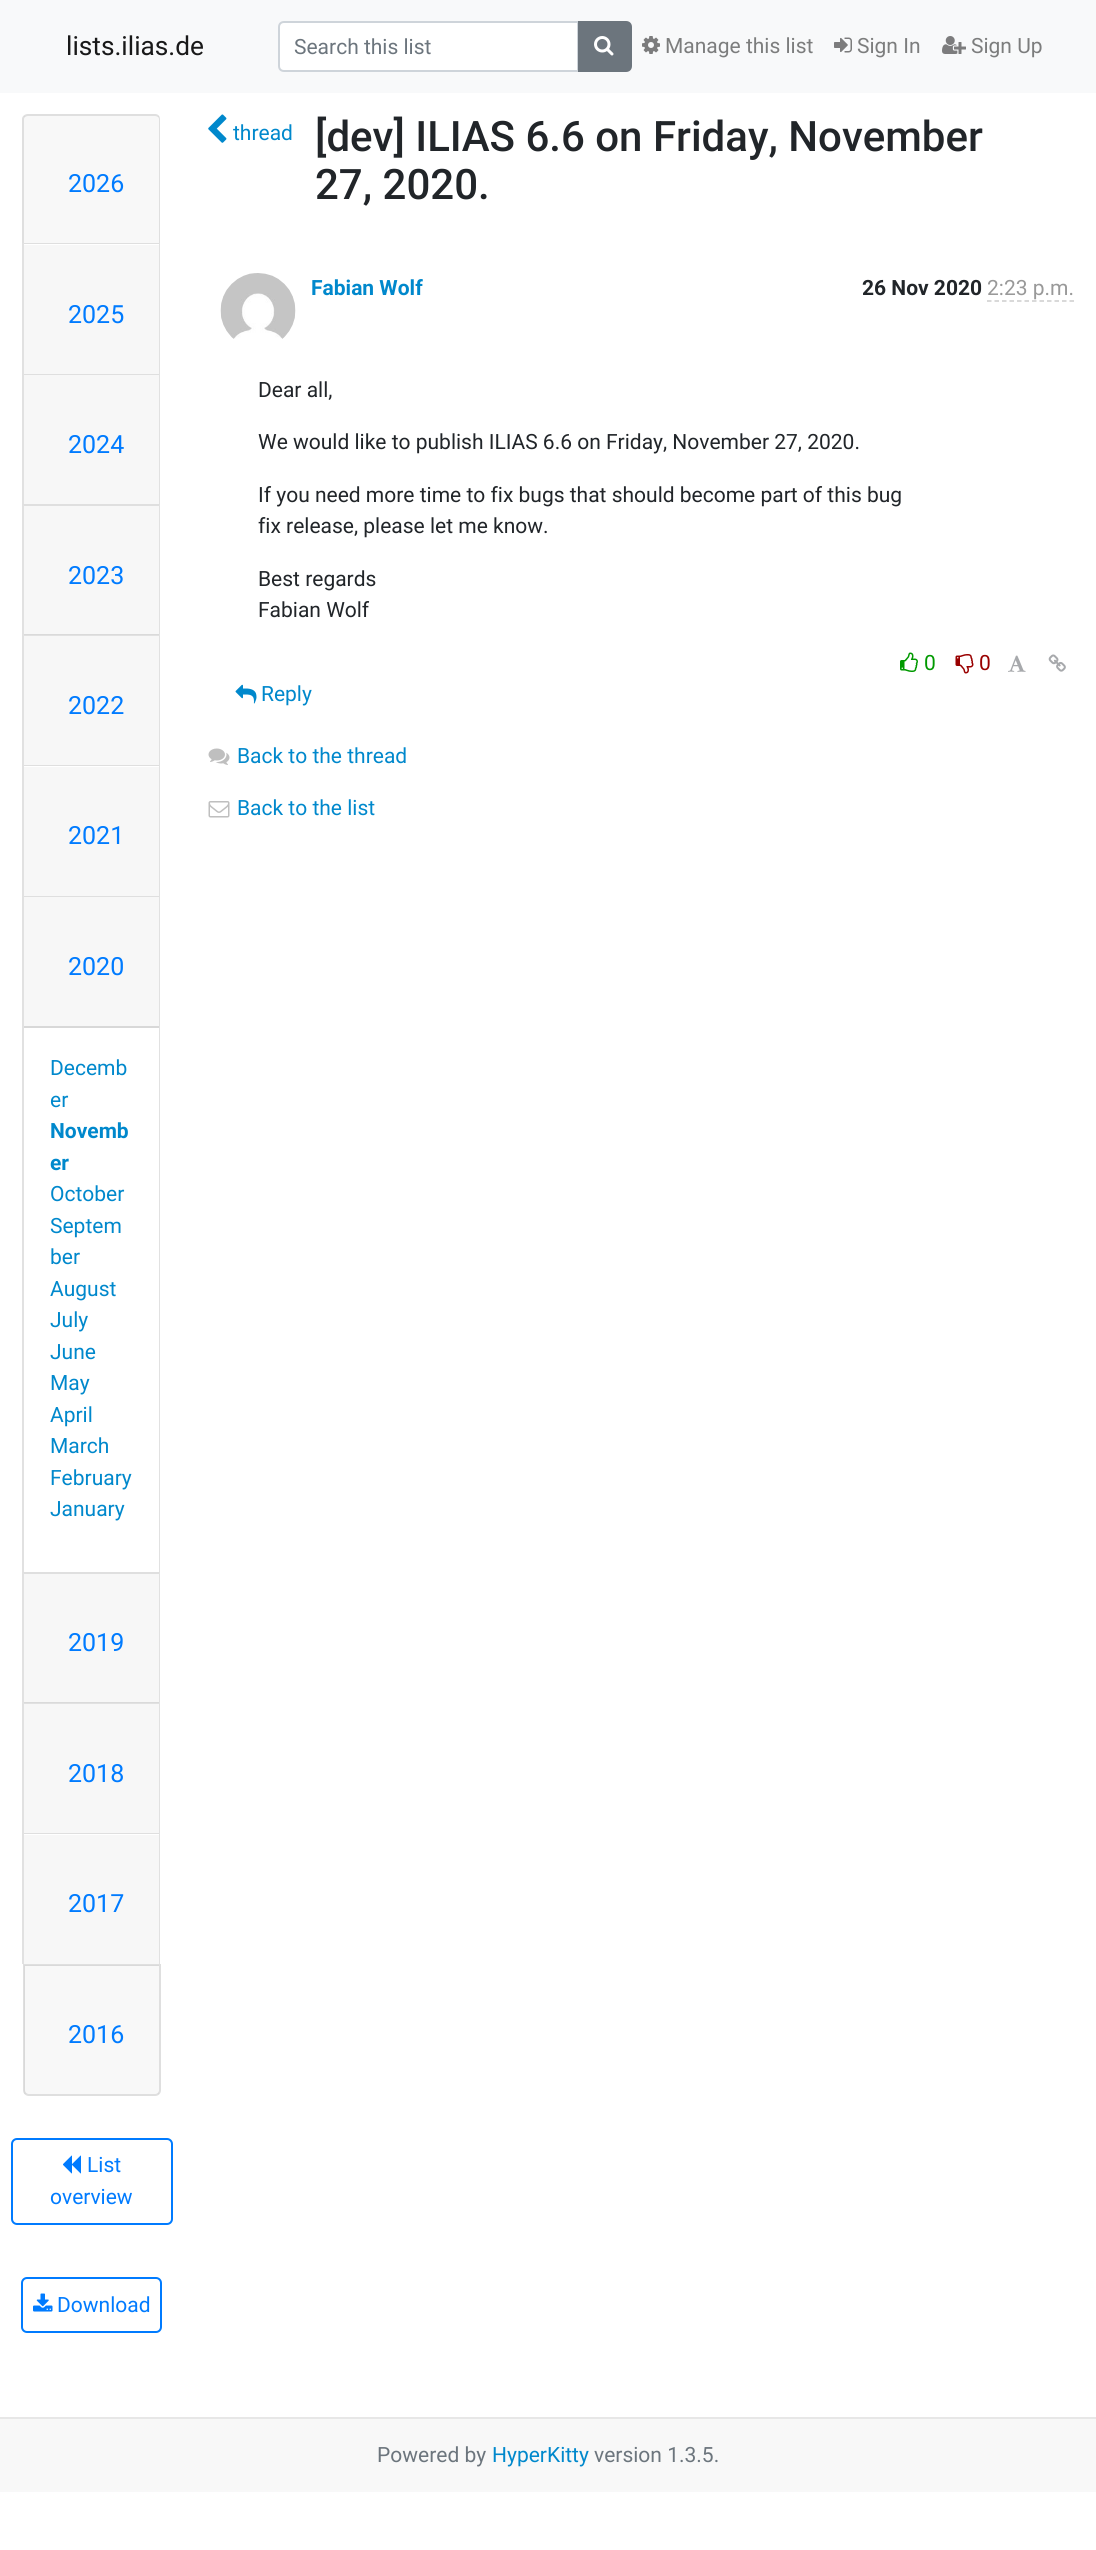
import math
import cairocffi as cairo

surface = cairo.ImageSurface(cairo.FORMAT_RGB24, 1096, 2550)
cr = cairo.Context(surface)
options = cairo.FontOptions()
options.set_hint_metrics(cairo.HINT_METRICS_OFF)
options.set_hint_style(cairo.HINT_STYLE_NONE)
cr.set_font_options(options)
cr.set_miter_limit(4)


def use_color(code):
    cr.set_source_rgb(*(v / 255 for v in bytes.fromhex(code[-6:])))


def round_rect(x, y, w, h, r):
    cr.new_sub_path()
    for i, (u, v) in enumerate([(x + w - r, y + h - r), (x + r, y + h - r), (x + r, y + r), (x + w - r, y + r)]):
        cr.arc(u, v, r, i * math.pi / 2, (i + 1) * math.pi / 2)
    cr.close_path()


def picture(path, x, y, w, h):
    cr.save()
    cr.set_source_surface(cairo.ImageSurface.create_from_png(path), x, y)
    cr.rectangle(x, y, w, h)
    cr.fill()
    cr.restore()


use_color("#ffffff")
cr.paint()
use_color("#f8f9fa")
cr.rectangle(0, 0, 1096, 93)
cr.fill()
cr.select_font_face("Roboto")
cr.set_font_size(26.25)
use_color("#191919")
cr.move_to(66, 55)
cr.show_text("lists.ilias.de")
use_color("#ffffff")
cr.new_path()
cr.move_to(284, 22)
cr.line_to(578, 22)
cr.line_to(578, 71)
cr.line_to(284, 71)
cr.curve_to(281, 71, 279, 69, 279, 66)
cr.line_to(279, 27)
cr.curve_to(279, 24, 281, 22, 284, 22)
cr.close_path()
cr.fill_preserve()
use_color("#ced4da")
cr.stroke()
cr.set_font_size(21)
use_color("#6c757d")
cr.move_to(294, 54)
cr.show_text("Search this list")
cr.new_path()
cr.move_to(579, 22)
cr.line_to(626, 22)
cr.curve_to(629, 22, 631, 24, 631, 27)
cr.line_to(631, 66)
cr.curve_to(631, 69, 629, 71, 626, 71)
cr.line_to(579, 71)
cr.close_path()
cr.fill_preserve()
cr.stroke()
picture("img1.png", 594, 36, 20, 20)
picture("img2.png", 642, 36, 18, 18)
use_color("#7c7d7d")
cr.move_to(665, 53)
cr.show_text("Manage this list")
picture("img3.png", 834, 37, 18, 16)
cr.move_to(857, 53)
cr.show_text("Sign In")
picture("img4.png", 942, 36, 24, 18)
cr.move_to(971, 53)
cr.show_text("Sign Up")
use_color("#dfdfdf")
cr.set_fill_rule(cairo.FILL_RULE_EVEN_ODD)
cr.new_path()
cr.move_to(28, 114)
cr.line_to(155, 114)
cr.curve_to(158, 114, 160, 116, 160, 119)
cr.line_to(160, 243)
cr.line_to(22, 243)
cr.line_to(22, 119)
cr.curve_to(22, 116, 25, 114, 28, 114)
cr.close_path()
cr.move_to(28, 116)
cr.line_to(155, 116)
cr.curve_to(157, 116, 159, 117, 159, 119)
cr.line_to(159, 243)
cr.line_to(24, 243)
cr.line_to(24, 119)
cr.curve_to(24, 117, 26, 116, 28, 116)
cr.close_path()
cr.fill()
cr.set_source_rgba(0, 0, 0, 0.03)
cr.rectangle(24, 116, 135, 127)
cr.fill()
cr.set_font_size(25)
use_color("#007bff")
cr.move_to(68, 192)
cr.show_text("2026")
use_color("#dfdfdf")
cr.set_fill_rule(cairo.FILL_RULE_WINDING)
cr.new_path()
cr.move_to(22, 243)
cr.line_to(160, 243)
cr.line_to(159, 244)
cr.line_to(24, 244)
cr.close_path()
cr.fill()
cr.set_source_rgba(0, 0, 0, 0.12)
cr.new_path()
cr.move_to(160, 243)
cr.line_to(160, 374)
cr.line_to(159, 374)
cr.line_to(159, 244)
cr.close_path()
cr.fill()
cr.new_path()
cr.move_to(22, 374)
cr.line_to(22, 243)
cr.line_to(24, 244)
cr.line_to(24, 374)
cr.close_path()
cr.fill()
use_color("#f7f7f7")
cr.rectangle(24, 245, 135, 129)
cr.fill()
use_color("#007bff")
cr.move_to(68, 323)
cr.show_text("2025")
use_color("#dfdfdf")
cr.new_path()
cr.move_to(22, 374)
cr.line_to(160, 374)
cr.line_to(159, 375)
cr.line_to(24, 375)
cr.close_path()
cr.fill()
cr.set_source_rgba(0, 0, 0, 0.12)
cr.new_path()
cr.move_to(160, 374)
cr.line_to(160, 504)
cr.line_to(159, 504)
cr.line_to(159, 375)
cr.close_path()
cr.fill()
cr.new_path()
cr.move_to(22, 504)
cr.line_to(22, 374)
cr.line_to(24, 375)
cr.line_to(24, 504)
cr.close_path()
cr.fill()
use_color("#f7f7f7")
cr.rectangle(24, 375, 135, 129)
cr.fill()
use_color("#007bff")
cr.move_to(68, 453)
cr.show_text("2024")
use_color("#dfdfdf")
cr.new_path()
cr.move_to(22, 504)
cr.line_to(160, 504)
cr.line_to(159, 506)
cr.line_to(24, 506)
cr.close_path()
cr.fill()
cr.set_source_rgba(0, 0, 0, 0.12)
cr.new_path()
cr.move_to(160, 504)
cr.line_to(160, 634)
cr.line_to(159, 634)
cr.line_to(159, 506)
cr.close_path()
cr.fill()
cr.new_path()
cr.move_to(22, 634)
cr.line_to(22, 504)
cr.line_to(24, 506)
cr.line_to(24, 634)
cr.close_path()
cr.fill()
use_color("#f7f7f7")
cr.rectangle(24, 506, 135, 129)
cr.fill()
use_color("#007bff")
cr.move_to(68, 584)
cr.show_text("2023")
cr.set_source_rgba(0, 0, 0, 0.12)
cr.new_path()
cr.move_to(22, 634)
cr.line_to(160, 634)
cr.line_to(159, 636)
cr.line_to(24, 636)
cr.close_path()
cr.fill()
cr.new_path()
cr.move_to(160, 634)
cr.line_to(160, 765)
cr.line_to(159, 765)
cr.line_to(159, 636)
cr.close_path()
cr.fill()
cr.new_path()
cr.move_to(22, 765)
cr.line_to(22, 634)
cr.line_to(24, 636)
cr.line_to(24, 765)
cr.close_path()
cr.fill()
use_color("#f7f7f7")
cr.rectangle(24, 636, 135, 129)
cr.fill()
use_color("#007bff")
cr.move_to(68, 714)
cr.show_text("2022")
use_color("#dfdfdf")
cr.new_path()
cr.move_to(22, 765)
cr.line_to(160, 765)
cr.line_to(159, 766)
cr.line_to(24, 766)
cr.close_path()
cr.fill()
cr.set_source_rgba(0, 0, 0, 0.12)
cr.new_path()
cr.move_to(160, 765)
cr.line_to(160, 896)
cr.line_to(159, 896)
cr.line_to(159, 766)
cr.close_path()
cr.fill()
cr.new_path()
cr.move_to(22, 896)
cr.line_to(22, 765)
cr.line_to(24, 766)
cr.line_to(24, 896)
cr.close_path()
cr.fill()
use_color("#f7f7f7")
cr.rectangle(24, 767, 135, 129)
cr.fill()
use_color("#007bff")
cr.move_to(68, 844)
cr.show_text("2021")
use_color("#dfdfdf")
cr.new_path()
cr.move_to(22, 896)
cr.line_to(160, 896)
cr.line_to(159, 897)
cr.line_to(24, 897)
cr.close_path()
cr.fill()
cr.set_source_rgba(0, 0, 0, 0.12)
cr.new_path()
cr.move_to(160, 896)
cr.line_to(160, 1572)
cr.line_to(159, 1572)
cr.line_to(159, 897)
cr.close_path()
cr.fill()
cr.new_path()
cr.move_to(22, 1572)
cr.line_to(22, 896)
cr.line_to(24, 897)
cr.line_to(24, 1572)
cr.close_path()
cr.fill()
use_color("#f7f7f7")
cr.rectangle(24, 897, 135, 129)
cr.fill()
use_color("#d8d8d8")
cr.rectangle(24, 1026, 135, 2)
cr.fill()
use_color("#007bff")
cr.move_to(68, 975)
cr.show_text("2020")
cr.set_font_size(21)
use_color("#0088cc")
cr.move_to(50, 1075)
cr.show_text("Decemb")
cr.move_to(50, 1107)
cr.show_text("er")
cr.select_font_face("Roboto", cairo.FONT_SLANT_NORMAL, cairo.FONT_WEIGHT_BOLD)
cr.move_to(50, 1138)
cr.show_text("Novemb")
cr.move_to(50, 1170)
cr.show_text("er")
cr.select_font_face("Roboto")
cr.move_to(50, 1201)
cr.show_text("October")
cr.move_to(50, 1233)
cr.show_text("Septem")
cr.move_to(50, 1264)
cr.show_text("ber")
cr.move_to(50, 1296)
cr.show_text("August")
cr.move_to(50, 1327)
cr.show_text("July")
cr.move_to(50, 1359)
cr.show_text("June")
cr.move_to(50, 1390)
cr.show_text("May")
cr.move_to(50, 1422)
cr.show_text("April")
cr.move_to(50, 1453)
cr.show_text("March")
cr.move_to(50, 1485)
cr.show_text("February")
cr.move_to(50, 1516)
cr.show_text("January")
use_color("#dfdfdf")
cr.new_path()
cr.move_to(22, 1572)
cr.line_to(160, 1572)
cr.line_to(159, 1574)
cr.line_to(24, 1574)
cr.close_path()
cr.fill()
cr.set_source_rgba(0, 0, 0, 0.12)
cr.new_path()
cr.move_to(160, 1572)
cr.line_to(160, 1702)
cr.line_to(159, 1702)
cr.line_to(159, 1574)
cr.close_path()
cr.fill()
cr.new_path()
cr.move_to(22, 1702)
cr.line_to(22, 1572)
cr.line_to(24, 1574)
cr.line_to(24, 1702)
cr.close_path()
cr.fill()
use_color("#f7f7f7")
cr.rectangle(24, 1574, 135, 129)
cr.fill()
cr.set_font_size(25)
use_color("#007bff")
cr.move_to(68, 1651)
cr.show_text("2019")
cr.set_source_rgba(0, 0, 0, 0.12)
cr.new_path()
cr.move_to(22, 1702)
cr.line_to(160, 1702)
cr.line_to(159, 1704)
cr.line_to(24, 1704)
cr.close_path()
cr.fill()
cr.new_path()
cr.move_to(160, 1702)
cr.line_to(160, 1833)
cr.line_to(159, 1833)
cr.line_to(159, 1704)
cr.close_path()
cr.fill()
cr.new_path()
cr.move_to(22, 1833)
cr.line_to(22, 1702)
cr.line_to(24, 1704)
cr.line_to(24, 1833)
cr.close_path()
cr.fill()
use_color("#f7f7f7")
cr.rectangle(24, 1704, 135, 129)
cr.fill()
use_color("#007bff")
cr.move_to(68, 1782)
cr.show_text("2018")
use_color("#dfdfdf")
cr.new_path()
cr.move_to(22, 1833)
cr.line_to(160, 1833)
cr.line_to(159, 1834)
cr.line_to(24, 1834)
cr.close_path()
cr.fill()
cr.set_source_rgba(0, 0, 0, 0.12)
cr.new_path()
cr.move_to(160, 1833)
cr.line_to(160, 1964)
cr.line_to(159, 1964)
cr.line_to(159, 1834)
cr.close_path()
cr.fill()
cr.new_path()
cr.move_to(22, 1964)
cr.line_to(22, 1833)
cr.line_to(24, 1834)
cr.line_to(24, 1964)
cr.close_path()
cr.fill()
use_color("#f7f7f7")
cr.rectangle(24, 1835, 135, 129)
cr.fill()
use_color("#007bff")
cr.move_to(68, 1912)
cr.show_text("2017")
cr.new_path()
cr.move_to(24, 1965)
cr.line_to(160, 1965)
cr.line_to(160, 2090)
cr.curve_to(160, 2093, 158, 2095, 155, 2095)
cr.line_to(29, 2095)
cr.curve_to(26, 2095, 24, 2093, 24, 2090)
cr.close_path()
use_color("#dfdfdf")
cr.stroke()
cr.set_source_rgba(0, 0, 0, 0.03)
cr.rectangle(24, 1965, 135, 129)
cr.fill()
use_color("#007bff")
cr.move_to(68, 2043)
cr.show_text("2016")
round_rect(12, 2139, 160, 85, 5)
cr.stroke()
picture("img5.png", 63, 2155, 18, 19)
cr.set_font_size(21)
cr.move_to(87, 2172)
cr.show_text("List")
cr.move_to(50, 2204)
cr.show_text("overview")
round_rect(22, 2278, 139, 54, 5)
cr.stroke()
picture("img6.png", 33, 2293, 20, 19)
cr.move_to(57, 2312)
cr.show_text("Download")
picture("img7.png", 208, 114, 19, 29)
use_color("#0088cc")
cr.move_to(233, 140)
cr.show_text("thread")
cr.select_font_face("Roboto Medium")
cr.set_font_size(42)
use_color("#212529")
cr.move_to(315, 151)
cr.show_text("[dev] ILIAS 6.6 on Friday, November")
cr.move_to(315, 199)
cr.show_text("27, 2020.")
picture("img8.png", 220, 273, 76, 66)
cr.select_font_face("Roboto", cairo.FONT_SLANT_NORMAL, cairo.FONT_WEIGHT_BOLD)
cr.set_font_size(21)
use_color("#0088cc")
cr.move_to(311, 295)
cr.show_text("Fabian Wolf")
use_color("#212529")
cr.move_to(862, 295)
cr.show_text("26 Nov 2020")
cr.select_font_face("Roboto")
use_color("#999999")
cr.move_to(987, 295)
cr.show_text("2:23 p.m.")
cr.new_path()
cr.move_to(987, 301)
cr.line_to(1074, 301)
use_color("#cccccc")
cr.set_line_width(1.5)
cr.set_dash([4.5, 3])
cr.stroke()
use_color("#212529")
cr.move_to(258, 397)
cr.show_text("Dear all,")
cr.move_to(258, 449)
cr.show_text("We would like to publish ILIAS 6.6 on Friday, November 27, 2020.")
cr.move_to(258, 502)
cr.show_text("If you need more time to fix bugs that should become part of this bug")
cr.move_to(258, 533)
cr.show_text("fix release, please let me know.")
cr.move_to(258, 586)
cr.show_text("Best regards")
cr.move_to(258, 617)
cr.show_text("Fabian Wolf")
picture("img9.png", 900, 652, 18, 20)
use_color("#009900")
cr.move_to(924, 670)
cr.show_text("0")
picture("img10.png", 955, 654, 19, 20)
use_color("#990000")
cr.move_to(979, 670)
cr.show_text("0")
picture("img11.png", 1008, 655, 18, 17)
picture("img12.png", 1048, 654, 18, 18)
picture("img13.png", 235, 684, 22, 20)
use_color("#0088cc")
cr.move_to(261, 701)
cr.show_text("Reply")
picture("img14.png", 208, 748, 22, 17)
cr.move_to(237, 763)
cr.show_text("Back to the thread")
picture("img15.png", 208, 801, 22, 17)
cr.move_to(237, 815)
cr.show_text("Back to the list")
use_color("#f8f8f8")
cr.rectangle(0, 2419, 1096, 73)
cr.fill()
use_color("#e7e7e7")
cr.rectangle(0, 2417, 1096, 2)
cr.fill()
use_color("#6c757d")
cr.move_to(377, 2462)
cr.show_text("Powered by")
use_color("#0088cc")
cr.move_to(492, 2462)
cr.show_text("HyperKitty")
use_color("#6c757d")
cr.move_to(594, 2462)
cr.show_text("version 1.3.5.")
surface.write_to_png("result.png")
